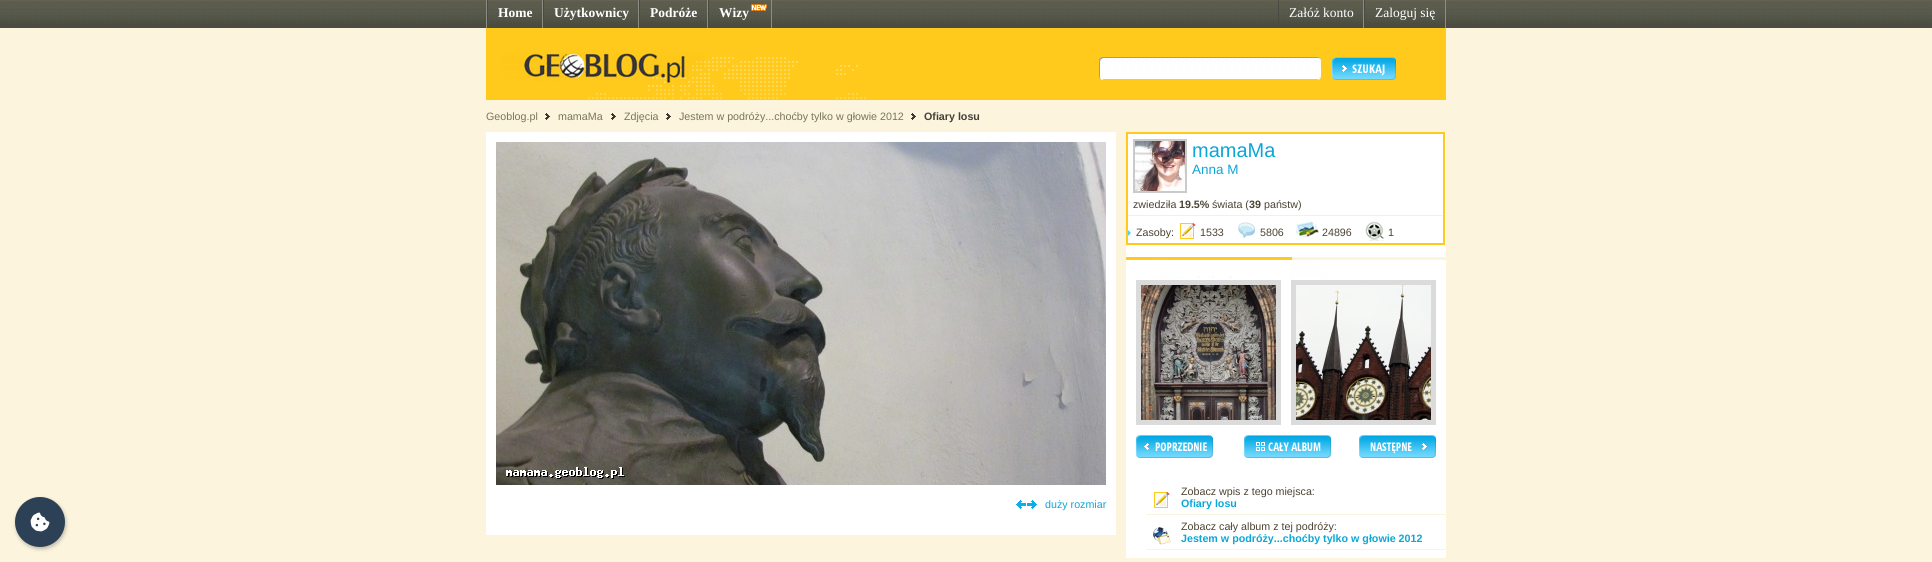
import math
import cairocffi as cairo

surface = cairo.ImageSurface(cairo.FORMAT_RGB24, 1932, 562)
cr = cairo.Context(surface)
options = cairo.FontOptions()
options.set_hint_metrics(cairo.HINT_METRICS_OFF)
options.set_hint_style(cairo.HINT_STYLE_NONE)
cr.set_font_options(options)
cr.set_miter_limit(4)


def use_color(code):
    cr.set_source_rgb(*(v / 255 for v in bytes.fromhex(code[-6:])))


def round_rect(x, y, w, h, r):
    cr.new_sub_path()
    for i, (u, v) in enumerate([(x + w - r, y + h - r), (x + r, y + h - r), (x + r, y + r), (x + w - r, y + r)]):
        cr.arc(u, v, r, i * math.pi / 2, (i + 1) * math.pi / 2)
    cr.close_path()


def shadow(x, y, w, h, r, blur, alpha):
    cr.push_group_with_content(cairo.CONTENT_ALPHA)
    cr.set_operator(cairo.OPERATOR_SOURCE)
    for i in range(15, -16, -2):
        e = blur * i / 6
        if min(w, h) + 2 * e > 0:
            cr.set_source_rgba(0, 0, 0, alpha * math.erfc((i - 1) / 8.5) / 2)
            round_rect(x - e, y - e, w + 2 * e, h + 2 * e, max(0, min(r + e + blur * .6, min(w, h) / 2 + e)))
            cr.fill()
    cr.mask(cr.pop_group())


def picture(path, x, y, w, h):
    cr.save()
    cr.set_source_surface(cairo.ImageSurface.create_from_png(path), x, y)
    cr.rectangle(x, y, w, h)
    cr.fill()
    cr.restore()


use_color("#fcf4dd")
cr.paint()
picture("img1.png", 0, 0, 1932, 28)
use_color("#000000")
shadow(16, 499, 50, 50, 25, 2, 0.25)
use_color("#2d4156")
cr.arc(40, 522, 25, 0, 2 * math.pi)
cr.fill()
picture("img2.png", 30, 512, 20, 20)
use_color("#8c8d83")
cr.rectangle(486, 0, 1, 28)
cr.fill()
cr.rectangle(542, 0, 1, 28)
cr.fill()
use_color("#494a41")
cr.rectangle(487, 0, 1, 28)
cr.fill()
cr.select_font_face("Liberation Serif", cairo.FONT_SLANT_NORMAL, cairo.FONT_WEIGHT_BOLD)
cr.set_font_size(13.5)
use_color("#ffffff")
cr.move_to(498, 17)
cr.show_text("Home")
use_color("#8c8d83")
cr.rectangle(638, 0, 1, 28)
cr.fill()
use_color("#494a41")
cr.rectangle(543, 0, 1, 28)
cr.fill()
use_color("#ffffff")
cr.move_to(554, 17)
cr.show_text("Użytkownicy")
use_color("#8c8d83")
cr.rectangle(707, 0, 1, 28)
cr.fill()
use_color("#494a41")
cr.rectangle(639, 0, 1, 28)
cr.fill()
use_color("#ffffff")
cr.move_to(650, 17)
cr.show_text("Podróże")
use_color("#8c8d83")
cr.rectangle(771, 0, 1, 28)
cr.fill()
use_color("#494a41")
cr.rectangle(708, 0, 1, 28)
cr.fill()
use_color("#ffffff")
cr.move_to(719, 17)
cr.show_text("Wizy")
picture("img3.png", 751, 4, 16, 7)
use_color("#8c8d83")
cr.rectangle(1363, 0, 1, 28)
cr.fill()
use_color("#494a41")
cr.rectangle(1278, 0, 1, 28)
cr.fill()
cr.select_font_face("Liberation Serif")
use_color("#ffffff")
cr.move_to(1289, 17)
cr.show_text("Załóż konto")
use_color("#8c8d83")
cr.rectangle(1445, 0, 1, 28)
cr.fill()
use_color("#494a41")
cr.rectangle(1364, 0, 1, 28)
cr.fill()
use_color("#ffffff")
cr.move_to(1375, 17)
cr.show_text("Zaloguj się")
use_color("#ffca1c")
cr.rectangle(486, 28, 960, 72)
cr.fill()
picture("img4.png", 486, 52, 380, 48)
picture("img5.png", 1099, 56, 4, 25)
use_color("#ffffff")
cr.rectangle(1103, 78, 215, 1)
cr.fill()
picture("img6.png", 1103, 56, 215, 22)
picture("img7.png", 1318, 56, 4, 25)
picture("img8.png", 1332, 57, 64, 23)
cr.select_font_face("Liberation Sans")
cr.set_font_size(10.7)
use_color("#76765c")
cr.move_to(486, 120)
cr.show_text("Geoblog.pl")
picture("img9.png", 545, 113, 5, 7)
cr.move_to(558, 120)
cr.show_text("mamaMa")
picture("img9.png", 611, 113, 5, 7)
cr.move_to(624, 120)
cr.show_text("Zdjęcia")
picture("img9.png", 666, 113, 5, 7)
cr.move_to(679, 120)
cr.show_text("Jestem w podróży...choćby tylko w głowie 2012")
picture("img9.png", 911, 113, 5, 7)
cr.select_font_face("Liberation Sans", cairo.FONT_SLANT_NORMAL, cairo.FONT_WEIGHT_BOLD)
use_color("#443f39")
cr.move_to(924, 120)
cr.show_text("Ofiary losu")
use_color("#ffffff")
cr.rectangle(486, 132, 630, 403)
cr.fill()
picture("img10.png", 496, 142, 610, 343)
picture("img11.png", 1016, 500, 21, 9)
cr.select_font_face("Liberation Sans")
use_color("#0ba7d8")
cr.move_to(1045, 508)
cr.show_text("duży rozmiar")
use_color("#ffffff")
cr.rectangle(1126, 132, 320, 426)
cr.fill()
cr.rectangle(1127, 133, 317, 111)
use_color("#ffca1c")
cr.stroke()
use_color("#f0f0f0")
cr.rectangle(1128, 215, 315, 1)
cr.fill()
cr.rectangle(1134, 140, 52, 52)
use_color("#cacaca")
cr.stroke()
picture("img12.png", 1135, 141, 50, 50)
cr.set_font_size(20)
use_color("#0ba7d8")
cr.move_to(1192, 157)
cr.show_text("mamaMa")
cr.set_font_size(13.5)
cr.move_to(1192, 174)
cr.show_text("Anna M")
cr.set_font_size(10.7)
use_color("#4b4233")
cr.move_to(1133, 208)
cr.show_text("zwiedziła")
cr.select_font_face("Liberation Sans", cairo.FONT_SLANT_NORMAL, cairo.FONT_WEIGHT_BOLD)
cr.move_to(1179, 208)
cr.show_text("19.5%")
cr.select_font_face("Liberation Sans")
cr.move_to(1212, 208)
cr.show_text("świata (")
cr.select_font_face("Liberation Sans", cairo.FONT_SLANT_NORMAL, cairo.FONT_WEIGHT_BOLD)
cr.move_to(1249, 208)
cr.show_text("39")
cr.select_font_face("Liberation Sans")
cr.move_to(1264, 208)
cr.show_text("państw)")
picture("img13.png", 1128, 230, 3, 6)
cr.move_to(1136, 236)
cr.show_text("Zasoby:")
picture("img14.png", 1180, 223, 16, 16)
cr.move_to(1200, 236)
cr.show_text("1533")
picture("img15.png", 1238, 222, 17, 16)
cr.move_to(1260, 236)
cr.show_text("5806")
picture("img16.png", 1296, 221, 23, 17)
cr.move_to(1322, 236)
cr.show_text("24896")
picture("img17.png", 1365, 221, 19, 20)
cr.move_to(1388, 236)
cr.show_text("1")
picture("img18.png", 1126, 257, 320, 21)
cr.rectangle(1138.5, 282.5, 140, 140)
use_color("#dbdbdb")
cr.set_line_width(5)
cr.stroke()
picture("img19.png", 1141, 285, 135, 135)
cr.rectangle(1293.5, 282.5, 140, 140)
cr.stroke()
picture("img20.png", 1296, 285, 135, 135)
picture("img21.png", 1136, 435, 77, 23)
picture("img22.png", 1244, 435, 87, 23)
picture("img23.png", 1359, 435, 77, 23)
use_color("#faf5df")
cr.rectangle(1146, 514, 300, 1)
cr.fill()
picture("img14.png", 1154, 492, 16, 16)
use_color("#4b4233")
cr.move_to(1181, 495)
cr.show_text("Zobacz wpis z tego miejsca:")
cr.select_font_face("Liberation Sans", cairo.FONT_SLANT_NORMAL, cairo.FONT_WEIGHT_BOLD)
use_color("#0ba7d8")
cr.move_to(1181, 507)
cr.show_text("Ofiary losu")
use_color("#faf5df")
cr.rectangle(1146, 549, 300, 1)
cr.fill()
picture("img24.png", 1153, 527, 18, 18)
cr.select_font_face("Liberation Sans")
use_color("#4b4233")
cr.move_to(1181, 530)
cr.show_text("Zobacz cały album z tej podróży:")
cr.select_font_face("Liberation Sans", cairo.FONT_SLANT_NORMAL, cairo.FONT_WEIGHT_BOLD)
use_color("#0ba7d8")
cr.move_to(1181, 542)
cr.show_text("Jestem w podróży...choćby tylko w głowie 2012")
surface.write_to_png("result.png")
